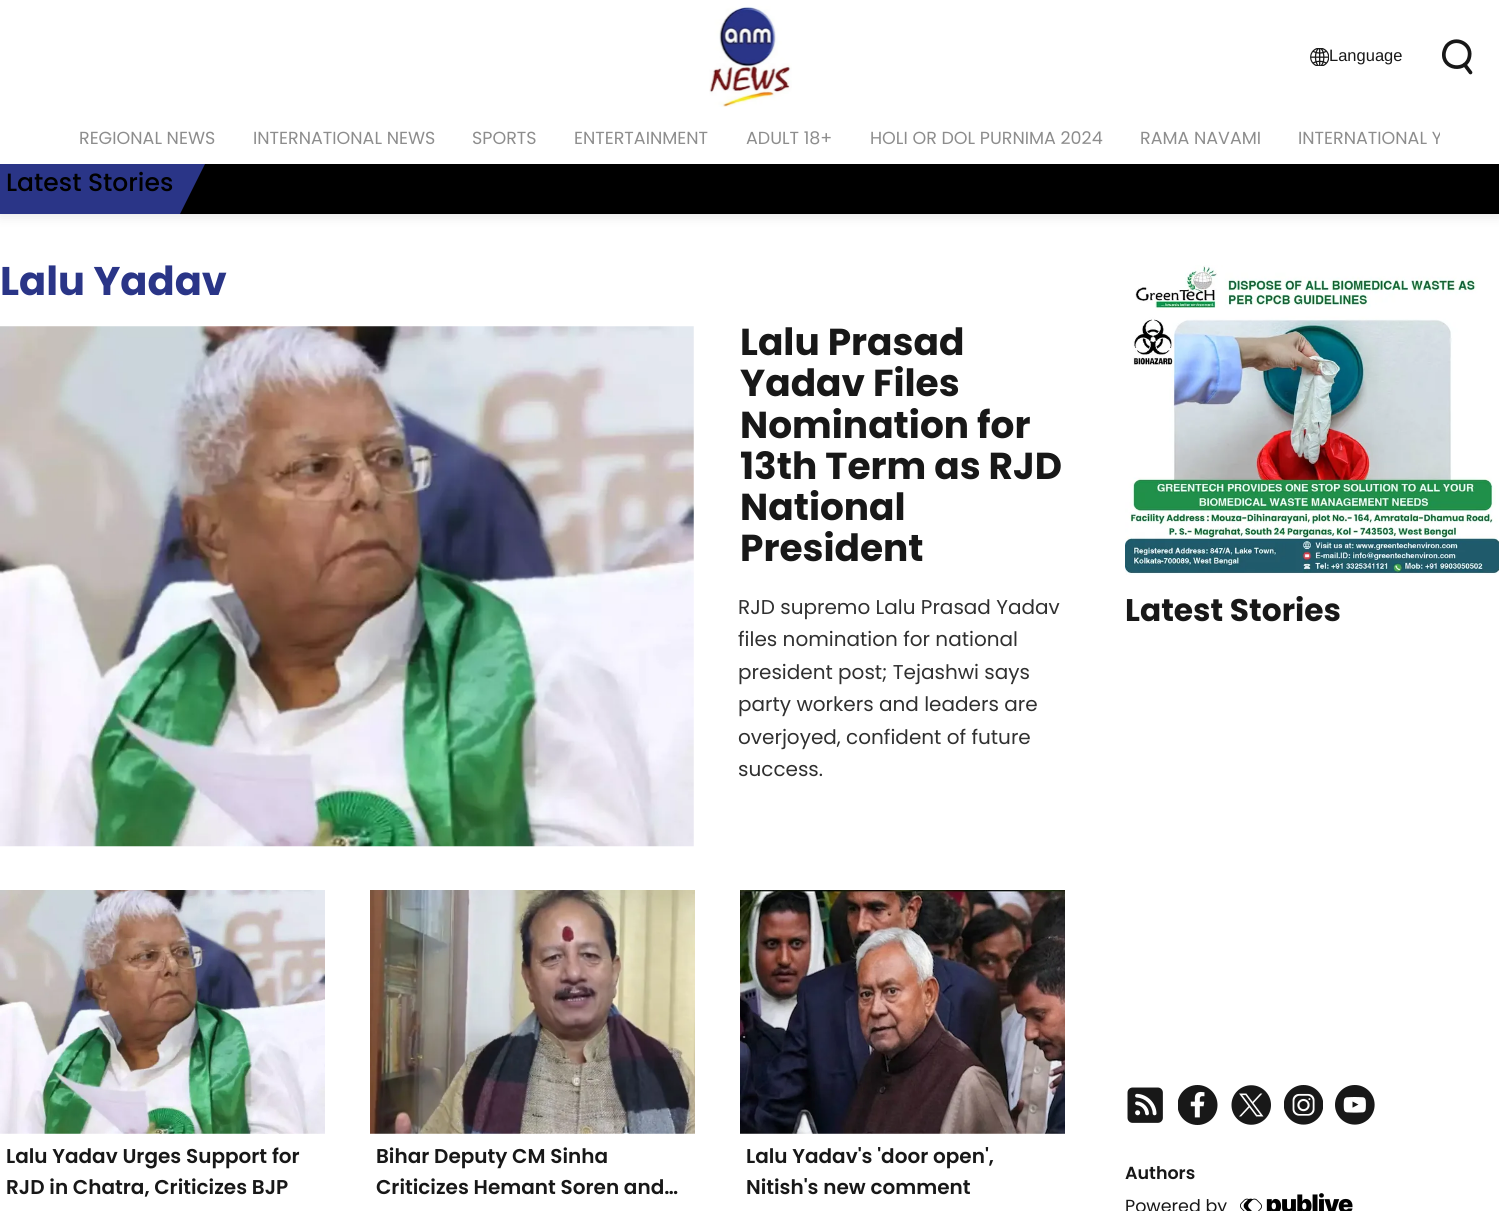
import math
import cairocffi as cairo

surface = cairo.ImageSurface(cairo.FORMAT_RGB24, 1499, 1211)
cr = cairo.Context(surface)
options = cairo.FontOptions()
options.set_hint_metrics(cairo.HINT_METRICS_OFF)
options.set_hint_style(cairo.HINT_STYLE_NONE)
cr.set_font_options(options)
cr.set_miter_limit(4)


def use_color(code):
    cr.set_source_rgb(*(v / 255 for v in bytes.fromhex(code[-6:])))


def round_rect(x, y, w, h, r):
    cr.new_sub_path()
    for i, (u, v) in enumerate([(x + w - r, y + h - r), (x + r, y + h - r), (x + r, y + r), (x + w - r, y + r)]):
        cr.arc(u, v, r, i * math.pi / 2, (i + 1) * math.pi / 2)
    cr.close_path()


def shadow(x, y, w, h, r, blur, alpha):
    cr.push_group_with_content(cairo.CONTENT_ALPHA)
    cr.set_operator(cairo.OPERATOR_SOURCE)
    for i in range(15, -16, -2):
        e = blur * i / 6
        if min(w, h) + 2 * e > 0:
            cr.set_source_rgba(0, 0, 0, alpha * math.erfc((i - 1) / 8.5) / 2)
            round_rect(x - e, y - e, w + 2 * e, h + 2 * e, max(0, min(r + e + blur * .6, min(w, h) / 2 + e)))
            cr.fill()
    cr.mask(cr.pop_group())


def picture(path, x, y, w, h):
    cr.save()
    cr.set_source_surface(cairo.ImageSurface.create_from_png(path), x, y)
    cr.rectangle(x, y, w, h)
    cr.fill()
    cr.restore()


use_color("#ffffff")
cr.paint()
use_color("#000000")
shadow(0, 3, 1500, 213, 0, 6, 0.1)
use_color("#ffffff")
cr.rectangle(0, 0, 1499, 164)
cr.fill()
picture("img1.png", 709, 6, 83, 101)
picture("img2.png", 1310, 48, 19, 18)
cr.select_font_face("Liberation Sans")
cr.set_font_size(16.5)
use_color("#181818")
cr.move_to(1329, 61)
cr.show_text("Language")
cr.new_path()
cr.move_to(1469.5, 56)
cr.curve_to(1467, 73, 1441.5, 69.5, 1444, 52.5)
cr.curve_to(1444.5, 50, 1445.5, 47.5, 1447, 45.5)
cr.curve_to(1455.5, 36, 1471.5, 43.5, 1469.5, 56)
cr.close_path()
cr.move_to(1470.5, 72.5)
cr.line_to(1464.5, 64.5)
cr.set_line_width(3.7)
cr.set_line_cap(cairo.LINE_CAP_ROUND)
cr.set_line_join(cairo.LINE_JOIN_ROUND)
cr.stroke()
cr.select_font_face("Poppins")
cr.set_font_size(17.5)
use_color("#8d8d8d")
cr.move_to(79, 144)
cr.show_text("REGIONAL NEWS")
cr.move_to(253, 144)
cr.show_text("INTERNATIONAL NEWS")
cr.move_to(472, 144)
cr.show_text("SPORTS")
cr.move_to(574, 144)
cr.show_text("ENTERTAINMENT")
cr.move_to(746, 144)
cr.show_text("ADULT 18+")
cr.move_to(870, 144)
cr.show_text("HOLI OR DOL PURNIMA 2024")
cr.move_to(1140, 144)
cr.show_text("RAMA NAVAMI")
cr.save()
cr.rectangle(60, 113, 1380, 51)
cr.clip()
cr.move_to(1298, 144)
cr.show_text("INTERNATIONAL Y")
cr.restore()
use_color("#2a3587")
cr.rectangle(0, 164, 180, 50)
cr.fill()
cr.select_font_face("Poppins Medium")
cr.set_font_size(25)
use_color("#000000")
cr.move_to(6, 191)
cr.show_text("Latest Stories")
cr.rectangle(180, 164, 1319, 50)
cr.fill()
use_color("#2a3587")
cr.new_path()
cr.move_to(180, 214)
cr.line_to(180, 164)
cr.line_to(205, 164)
cr.close_path()
cr.fill()
cr.select_font_face("Poppins", cairo.FONT_SLANT_NORMAL, cairo.FONT_WEIGHT_BOLD)
cr.set_font_size(40)
cr.move_to(0, 295)
cr.show_text("Lalu Yadav")
picture("img3.png", 0, 326, 694, 521)
cr.set_font_size(37.5)
use_color("#181818")
cr.move_to(740, 355)
cr.show_text("Lalu Prasad")
cr.move_to(740, 396)
cr.show_text("Yadav Files")
cr.move_to(740, 438)
cr.show_text("Nomination for")
cr.move_to(740, 479)
cr.show_text("13th Term as RJD")
cr.move_to(740, 520)
cr.show_text("National")
cr.move_to(740, 561)
cr.show_text("President")
cr.select_font_face("Poppins")
cr.set_font_size(20)
use_color("#303030")
cr.move_to(738, 614)
cr.show_text("RJD supremo Lalu Prasad Yadav")
cr.move_to(738, 646)
cr.show_text("files nomination for national")
cr.move_to(738, 679)
cr.show_text("president post; Tejashwi says")
cr.move_to(738, 711)
cr.show_text("party workers and leaders are")
cr.move_to(738, 744)
cr.show_text("overjoyed, confident of future")
cr.move_to(738, 776)
cr.show_text("success.")
picture("img4.png", 0, 890, 325, 244)
cr.select_font_face("Poppins SemiBold")
use_color("#181818")
cr.move_to(6, 1163)
cr.show_text("Lalu Yadav Urges Support for")
cr.move_to(6, 1194)
cr.show_text("RJD in Chatra, Criticizes BJP")
picture("img5.png", 370, 890, 325, 244)
cr.move_to(376, 1163)
cr.show_text("Bihar Deputy CM Sinha")
cr.move_to(376, 1194)
cr.show_text("Criticizes Hemant Soren and…")
picture("img6.png", 740, 890, 325, 244)
cr.move_to(746, 1163)
cr.show_text("Lalu Yadav's 'door open',")
cr.move_to(746, 1194)
cr.show_text("Nitish's new comment")
picture("img7.png", 1125, 265, 374, 310)
cr.select_font_face("Poppins", cairo.FONT_SLANT_NORMAL, cairo.FONT_WEIGHT_BOLD)
cr.set_font_size(31.25)
cr.move_to(1125, 621)
cr.show_text("Latest Stories")
picture("img8.png", 1127, 1087, 36, 36)
picture("img9.png", 1178, 1085, 40, 40)
picture("img10.png", 1231, 1085, 40, 40)
picture("img11.png", 1284, 1085, 39, 40)
picture("img12.png", 1335, 1085, 40, 40)
cr.select_font_face("Poppins SemiBold")
cr.set_font_size(17.5)
cr.move_to(1125, 1179)
cr.show_text("Authors")
cr.select_font_face("Poppins")
cr.move_to(1125, 1212)
cr.show_text("Powered by")
picture("img13.png", 1240, 1193, 113, 18)
surface.write_to_png("result.png")
